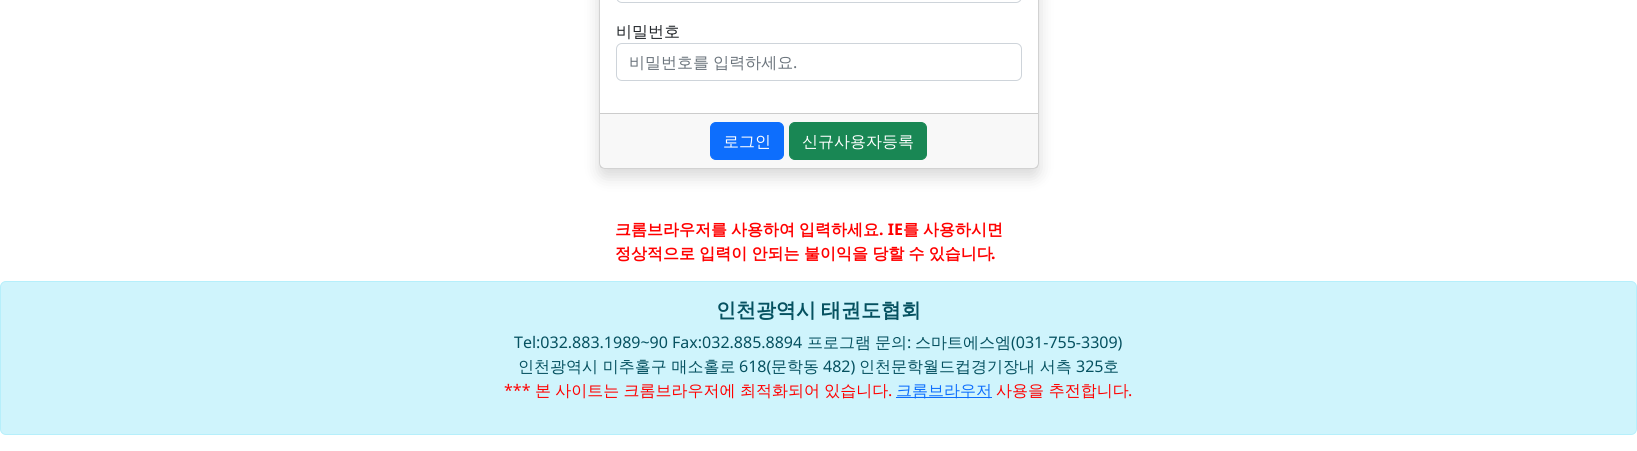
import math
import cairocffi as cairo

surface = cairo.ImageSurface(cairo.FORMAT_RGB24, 1637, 451)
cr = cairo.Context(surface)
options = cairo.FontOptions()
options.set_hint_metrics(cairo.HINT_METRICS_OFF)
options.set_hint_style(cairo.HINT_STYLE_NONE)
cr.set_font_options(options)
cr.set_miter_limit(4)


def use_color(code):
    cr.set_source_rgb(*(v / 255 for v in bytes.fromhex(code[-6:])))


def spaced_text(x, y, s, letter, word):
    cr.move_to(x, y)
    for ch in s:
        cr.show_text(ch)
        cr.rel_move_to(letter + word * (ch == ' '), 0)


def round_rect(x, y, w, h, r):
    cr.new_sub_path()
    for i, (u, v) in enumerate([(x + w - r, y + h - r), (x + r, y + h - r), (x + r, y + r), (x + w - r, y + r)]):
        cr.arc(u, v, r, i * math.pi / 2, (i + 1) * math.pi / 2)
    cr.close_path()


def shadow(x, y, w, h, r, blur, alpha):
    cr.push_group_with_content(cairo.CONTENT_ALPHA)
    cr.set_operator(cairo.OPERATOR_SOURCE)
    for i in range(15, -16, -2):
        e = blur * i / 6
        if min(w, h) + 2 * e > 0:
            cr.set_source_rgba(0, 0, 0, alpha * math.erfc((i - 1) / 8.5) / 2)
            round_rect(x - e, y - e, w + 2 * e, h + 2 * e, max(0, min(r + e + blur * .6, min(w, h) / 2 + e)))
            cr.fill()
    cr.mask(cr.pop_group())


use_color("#ffffff")
cr.paint()
use_color("#000000")
shadow(599, -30, 440, 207, 6, 8, 0.15)
use_color("#ffffff")
round_rect(599.5, -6.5, 439, 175, 5.5)
cr.fill_preserve()
use_color("#d2d2d2")
cr.set_line_width(1)
cr.stroke()
round_rect(616.5, -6.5, 405, 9, 5.5)
use_color("#ced4da")
cr.stroke()
cr.select_font_face("WenQuanYi Zen Hei Medium")
cr.set_font_size(16)
use_color("#212529")
cr.move_to(616, 37)
cr.show_text("비밀번호")
round_rect(616.5, 43.5, 405, 37, 5.5)
use_color("#ced4da")
cr.stroke()
use_color("#6c757d")
spaced_text(629, 68, "비밀번호를 입력하세요", 0, -0.5)
cr.select_font_face("Noto Sans")
cr.move_to(793, 68)
cr.show_text(".")
cr.set_source_rgba(0, 0, 0, 0.03)
cr.rectangle(600, 114, 438, 54)
cr.fill()
use_color("#cccccc")
cr.rectangle(600, 113, 438, 1)
cr.fill()
use_color("#0d6efd")
round_rect(710.5, 122.5, 73, 37, 5.5)
cr.fill_preserve()
cr.stroke()
cr.select_font_face("WenQuanYi Zen Hei Medium")
use_color("#ffffff")
cr.move_to(723, 147)
cr.show_text("로그인")
use_color("#198754")
round_rect(789.5, 122.5, 137, 37, 5.5)
cr.fill_preserve()
cr.stroke()
use_color("#ffffff")
cr.move_to(802, 147)
cr.show_text("신규사용자등록")
cr.select_font_face("WenQuanYi Zen Hei", cairo.FONT_SLANT_NORMAL, cairo.FONT_WEIGHT_BOLD)
use_color("#ff0000")
cr.move_to(615, 235)
cr.show_text("크롬브라우저를")
cr.move_to(731, 235)
cr.show_text("사용하여")
cr.move_to(799, 235)
cr.show_text("입력하세요")
cr.select_font_face("Noto Sans", cairo.FONT_SLANT_NORMAL, cairo.FONT_WEIGHT_BOLD)
cr.move_to(879, 235)
cr.show_text(". IE")
cr.select_font_face("WenQuanYi Zen Hei", cairo.FONT_SLANT_NORMAL, cairo.FONT_WEIGHT_BOLD)
cr.move_to(903, 235)
cr.show_text("를")
cr.move_to(923, 235)
cr.show_text("사용하시면")
spaced_text(615, 259, "정상적으로 입력이 안되는 불이익을 당할 수 있습니다", 0, -0.5)
cr.select_font_face("Noto Sans", cairo.FONT_SLANT_NORMAL, cairo.FONT_WEIGHT_BOLD)
cr.move_to(991, 259)
cr.show_text(".")
use_color("#cff4fc")
round_rect(0.5, 281.5, 1636, 153, 5.5)
cr.fill_preserve()
use_color("#b6effb")
cr.stroke()
cr.select_font_face("WenQuanYi Zen Hei", cairo.FONT_SLANT_NORMAL, cairo.FONT_WEIGHT_BOLD)
cr.set_font_size(20)
use_color("#055160")
spaced_text(716, 317, "인천광역시 태권도협회", 0, -1)
cr.select_font_face("Noto Sans")
cr.set_font_size(16)
cr.move_to(514, 348)
cr.show_text("Tel:032.883.1989~90 Fax:032.885.8894")
cr.select_font_face("WenQuanYi Zen Hei Medium")
cr.move_to(807, 348)
cr.show_text("프로그램")
cr.move_to(875, 348)
cr.show_text("문의")
cr.select_font_face("Noto Sans")
cr.move_to(907, 348)
cr.show_text(":")
cr.select_font_face("WenQuanYi Zen Hei Medium")
cr.move_to(915, 348)
cr.show_text("스마트에스엠")
cr.select_font_face("Noto Sans")
cr.move_to(1011, 348)
cr.show_text("(031-755-3309)")
cr.select_font_face("WenQuanYi Zen Hei Medium")
cr.move_to(518, 372)
cr.show_text("인천광역시 미추홀구 매소홀로")
cr.select_font_face("Noto Sans")
cr.move_to(739, 372)
cr.show_text("618(")
cr.select_font_face("WenQuanYi Zen Hei Medium")
cr.move_to(771, 372)
cr.show_text("문학동")
cr.select_font_face("Noto Sans")
cr.move_to(823, 372)
cr.show_text("482)")
cr.select_font_face("WenQuanYi Zen Hei Medium")
cr.move_to(859, 372)
cr.show_text("인천문학월드컵경기장내 서측")
cr.select_font_face("Noto Sans")
cr.move_to(1076, 372)
cr.show_text("325")
cr.select_font_face("WenQuanYi Zen Hei Medium")
cr.move_to(1103, 372)
cr.show_text("호")
cr.select_font_face("Noto Sans")
use_color("#ff0000")
cr.move_to(504, 396)
cr.show_text("***")
cr.select_font_face("WenQuanYi Zen Hei Medium")
spaced_text(535, 396, "본 사이트는 크롬브라우저에 최적화되어 있습니다", 0, -0.5)
cr.select_font_face("Noto Sans")
cr.move_to(888, 396)
cr.show_text(".")
use_color("#0d6efd")
cr.rectangle(896, 397, 96, 1)
cr.fill()
cr.select_font_face("WenQuanYi Zen Hei Medium")
cr.move_to(896, 396)
cr.show_text("크롬브라우저")
use_color("#ff0000")
cr.move_to(996, 396)
cr.show_text("사용을 추전합니다")
cr.select_font_face("Noto Sans")
cr.move_to(1128, 396)
cr.show_text(".")
surface.write_to_png("result.png")
